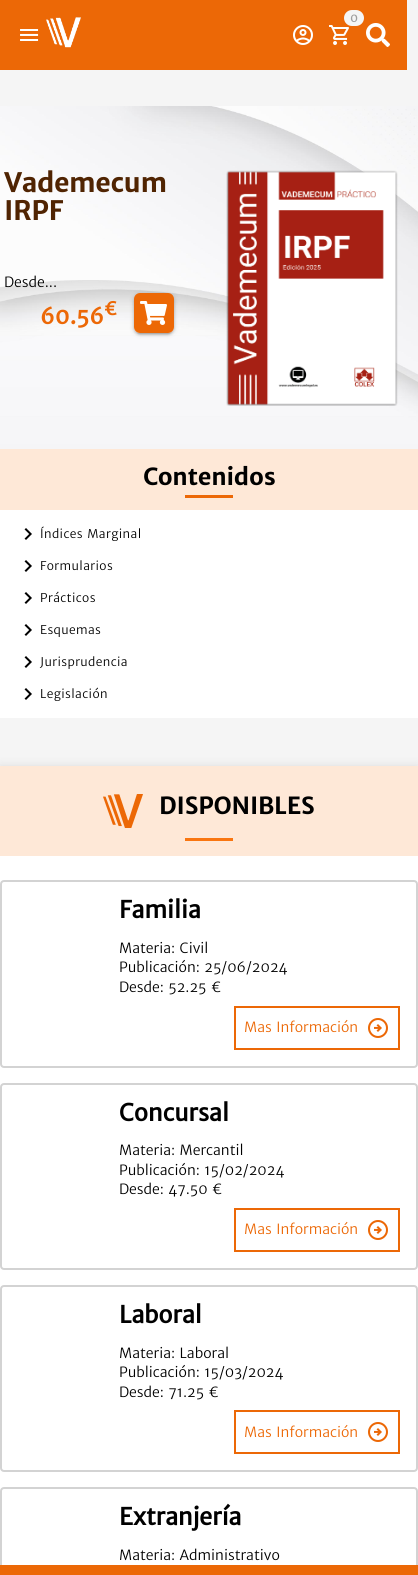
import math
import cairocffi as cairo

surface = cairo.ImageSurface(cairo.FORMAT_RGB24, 418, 1575)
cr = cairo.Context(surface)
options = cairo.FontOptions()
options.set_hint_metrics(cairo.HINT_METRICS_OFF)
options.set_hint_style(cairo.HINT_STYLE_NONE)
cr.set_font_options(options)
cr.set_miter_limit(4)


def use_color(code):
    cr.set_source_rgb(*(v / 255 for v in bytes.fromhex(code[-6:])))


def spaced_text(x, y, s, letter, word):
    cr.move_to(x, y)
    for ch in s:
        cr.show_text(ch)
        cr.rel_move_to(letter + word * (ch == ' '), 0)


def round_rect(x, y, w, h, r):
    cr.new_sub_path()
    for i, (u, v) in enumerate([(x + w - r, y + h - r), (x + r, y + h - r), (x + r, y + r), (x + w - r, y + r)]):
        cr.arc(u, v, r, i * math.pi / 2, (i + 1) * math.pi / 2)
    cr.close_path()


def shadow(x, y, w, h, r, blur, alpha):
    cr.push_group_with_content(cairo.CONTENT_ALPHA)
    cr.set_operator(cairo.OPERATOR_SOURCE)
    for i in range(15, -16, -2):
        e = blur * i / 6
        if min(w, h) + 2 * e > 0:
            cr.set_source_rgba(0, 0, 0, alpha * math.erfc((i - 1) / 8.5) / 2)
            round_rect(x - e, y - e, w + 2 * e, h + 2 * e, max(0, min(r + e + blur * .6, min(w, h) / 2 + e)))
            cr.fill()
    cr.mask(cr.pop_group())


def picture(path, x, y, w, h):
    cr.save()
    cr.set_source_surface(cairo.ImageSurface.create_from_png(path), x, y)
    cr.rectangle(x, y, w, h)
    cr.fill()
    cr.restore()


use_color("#f5f5f5")
cr.paint()
use_color("#ec6806")
cr.rectangle(0, 0, 407, 70)
cr.fill()
picture("img1.png", 20, 29, 19, 12)
picture("img2.png", 46, 17, 35, 31)
picture("img3.png", 329, 25, 20, 20)
use_color("#f5f5f5")
round_rect(344, 10, 20, 16, 8)
cr.fill()
cr.select_font_face("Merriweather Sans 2")
cr.set_font_size(12)
use_color("#9e9e9e")
cr.move_to(350, 22)
cr.show_text("0")
picture("img4.png", 293, 25, 20, 20)
picture("img5.png", 366, 23, 24, 24)
picture("img6.png", 0, 106, 418, 343)
cr.select_font_face("Merriweather Sans", cairo.FONT_SLANT_NORMAL, cairo.FONT_WEIGHT_BOLD)
cr.set_font_size(26.75)
use_color("#502402")
spaced_text(4, 192, "Vademecum", -0.5, 0)
spaced_text(4, 220, "IRPF", -0.5, 0)
cr.select_font_face("Merriweather Sans")
cr.set_font_size(14)
use_color("#000000")
cr.move_to(4, 287)
cr.show_text("Desde...")
cr.select_font_face("Merriweather Sans 2", cairo.FONT_SLANT_NORMAL, cairo.FONT_WEIGHT_BOLD)
cr.set_font_size(22)
use_color("#ec6806")
cr.move_to(40, 324)
cr.show_text("60.56")
cr.set_font_size(18)
cr.move_to(104, 315)
cr.show_text("€")
round_rect(134, 293, 40, 40, 6)
cr.fill()
cr.save()
cr.set_fill_rule(cairo.FILL_RULE_EVEN_ODD)
cr.new_path()
cr.move_to(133, 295)
cr.line_to(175, 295)
cr.line_to(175, 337)
cr.line_to(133, 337)
cr.close_path()
cr.move_to(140, 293)
cr.line_to(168, 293)
cr.curve_to(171.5, 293, 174, 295.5, 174, 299)
cr.line_to(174, 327)
cr.curve_to(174, 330.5, 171.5, 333, 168, 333)
cr.line_to(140, 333)
cr.curve_to(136.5, 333, 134, 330.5, 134, 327)
cr.line_to(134, 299)
cr.curve_to(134, 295.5, 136.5, 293, 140, 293)
cr.close_path()
cr.clip()
use_color("#000000")
shadow(136, 298, 36, 36, 4, 0.5, 0.12)
cr.restore()
cr.save()
cr.set_fill_rule(cairo.FILL_RULE_EVEN_ODD)
cr.new_path()
cr.move_to(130, 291)
cr.line_to(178, 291)
cr.line_to(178, 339)
cr.line_to(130, 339)
cr.close_path()
cr.move_to(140, 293)
cr.line_to(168, 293)
cr.curve_to(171.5, 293, 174, 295.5, 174, 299)
cr.line_to(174, 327)
cr.curve_to(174, 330.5, 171.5, 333, 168, 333)
cr.line_to(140, 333)
cr.curve_to(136.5, 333, 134, 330.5, 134, 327)
cr.line_to(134, 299)
cr.curve_to(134, 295.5, 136.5, 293, 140, 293)
cr.close_path()
cr.clip()
use_color("#000000")
shadow(134, 295, 40, 40, 6, 1, 0.14)
cr.restore()
cr.save()
cr.set_fill_rule(cairo.FILL_RULE_EVEN_ODD)
cr.new_path()
cr.move_to(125, 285)
cr.line_to(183, 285)
cr.line_to(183, 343)
cr.line_to(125, 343)
cr.close_path()
cr.move_to(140, 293)
cr.line_to(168, 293)
cr.curve_to(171.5, 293, 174, 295.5, 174, 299)
cr.line_to(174, 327)
cr.curve_to(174, 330.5, 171.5, 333, 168, 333)
cr.line_to(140, 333)
cr.curve_to(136.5, 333, 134, 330.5, 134, 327)
cr.line_to(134, 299)
cr.curve_to(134, 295.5, 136.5, 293, 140, 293)
cr.close_path()
cr.clip()
use_color("#000000")
shadow(134, 294, 40, 40, 6, 2.5, 0.2)
cr.restore()
picture("img7.png", 140, 301, 27, 24)
picture("img8.png", 226, 170, 172, 236)
use_color("#ffffff")
cr.rectangle(0, 510, 418, 208)
cr.fill()
use_color("#fee8d7")
cr.rectangle(0, 449, 418, 61)
cr.fill()
cr.select_font_face("Merriweather Sans", cairo.FONT_SLANT_NORMAL, cairo.FONT_WEIGHT_BOLD)
cr.set_font_size(23.5)
use_color("#000000")
spaced_text(143, 485, "Contenidos", -0.25, 0)
use_color("#ec6806")
cr.rectangle(185, 495, 48, 3)
cr.fill()
picture("img9.png", 24, 528, 8, 12)
cr.select_font_face("Merriweather Sans")
cr.set_font_size(12)
use_color("#000000")
spaced_text(40, 538, "Índices Marginal", 0.4, 0)
picture("img9.png", 24, 560, 8, 12)
spaced_text(40, 570, "Formularios", 0.4, 0)
picture("img9.png", 24, 592, 8, 12)
spaced_text(40, 602, "Prácticos", 0.4, 0)
picture("img9.png", 24, 624, 8, 12)
spaced_text(40, 634, "Esquemas", 0.4, 0)
picture("img9.png", 24, 656, 8, 12)
spaced_text(40, 666, "Jurisprudencia", 0.4, 0)
picture("img9.png", 24, 688, 8, 12)
spaced_text(40, 698, "Legislación", 0.4, 0)
use_color("#000000")
shadow(0, 766, 418, 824, 0, 5, 0.1)
use_color("#ffffff")
cr.rectangle(0, 856, 418, 709)
cr.fill()
use_color("#fee8d7")
cr.rectangle(0, 766, 418, 90)
cr.fill()
picture("img10.png", 103, 794, 40, 34)
use_color("#f97510")
cr.rectangle(185, 838, 48, 3)
cr.fill()
cr.select_font_face("Merriweather Sans", cairo.FONT_SLANT_NORMAL, cairo.FONT_WEIGHT_BOLD)
cr.set_font_size(23.5)
use_color("#000000")
spaced_text(159, 814, "DISPONIBLES", -0.25, 0)
round_rect(1, 881, 416, 186, 3)
use_color("#d3d3d3")
cr.stroke()
cr.select_font_face("Merriweather Sans 2", cairo.FONT_SLANT_NORMAL, cairo.FONT_WEIGHT_BOLD)
use_color("#000000")
cr.move_to(119, 918)
cr.show_text("Familia")
cr.select_font_face("Merriweather Sans")
cr.set_font_size(14)
cr.move_to(119, 953)
cr.show_text("Materia: Civil")
cr.move_to(119, 972)
cr.show_text("Publicación: 25/06/2024")
cr.move_to(119, 992)
cr.show_text("Desde: 52.25 €")
cr.rectangle(235, 1007, 164, 42)
use_color("#ec6806")
cr.stroke()
cr.move_to(244, 1032)
cr.show_text("Mas Información")
picture("img11.png", 368, 1018, 20, 20)
round_rect(1, 1084, 416, 185, 3)
use_color("#d3d3d3")
cr.stroke()
cr.select_font_face("Merriweather Sans 2", cairo.FONT_SLANT_NORMAL, cairo.FONT_WEIGHT_BOLD)
cr.set_font_size(23.5)
use_color("#000000")
cr.move_to(119, 1121)
cr.show_text("Concursal")
cr.select_font_face("Merriweather Sans")
cr.set_font_size(14)
cr.move_to(119, 1155)
cr.show_text("Materia: Mercantil")
cr.move_to(119, 1175)
cr.show_text("Publicación: 15/02/2024")
cr.move_to(119, 1194)
cr.show_text("Desde: 47.50 €")
cr.rectangle(235, 1209, 164, 42)
use_color("#ec6806")
cr.stroke()
cr.move_to(244, 1234)
cr.show_text("Mas Información")
picture("img11.png", 368, 1220, 20, 20)
round_rect(1, 1286, 416, 185, 3)
use_color("#d3d3d3")
cr.stroke()
cr.select_font_face("Merriweather Sans 2", cairo.FONT_SLANT_NORMAL, cairo.FONT_WEIGHT_BOLD)
cr.set_font_size(23.5)
use_color("#000000")
cr.move_to(119, 1323)
cr.show_text("Laboral")
cr.select_font_face("Merriweather Sans")
cr.set_font_size(14)
cr.move_to(119, 1358)
cr.show_text("Materia: Laboral")
cr.move_to(119, 1377)
cr.show_text("Publicación: 15/03/2024")
cr.move_to(119, 1397)
cr.show_text("Desde: 71.25 €")
cr.rectangle(235, 1411, 164, 42)
use_color("#ec6806")
cr.stroke()
cr.move_to(244, 1437)
cr.show_text("Mas Información")
picture("img11.png", 368, 1422, 20, 20)
round_rect(1, 1488, 416, 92, 3)
use_color("#d3d3d3")
cr.stroke()
cr.select_font_face("Merriweather Sans 2", cairo.FONT_SLANT_NORMAL, cairo.FONT_WEIGHT_BOLD)
cr.set_font_size(23.5)
use_color("#000000")
cr.move_to(119, 1525)
cr.show_text("Extranjería")
cr.select_font_face("Merriweather Sans")
cr.set_font_size(14)
cr.move_to(119, 1560)
cr.show_text("Materia: Administrativo")
use_color("#ec6806")
cr.rectangle(0, 1565, 418, 10)
cr.fill()
surface.write_to_png("result.png")
